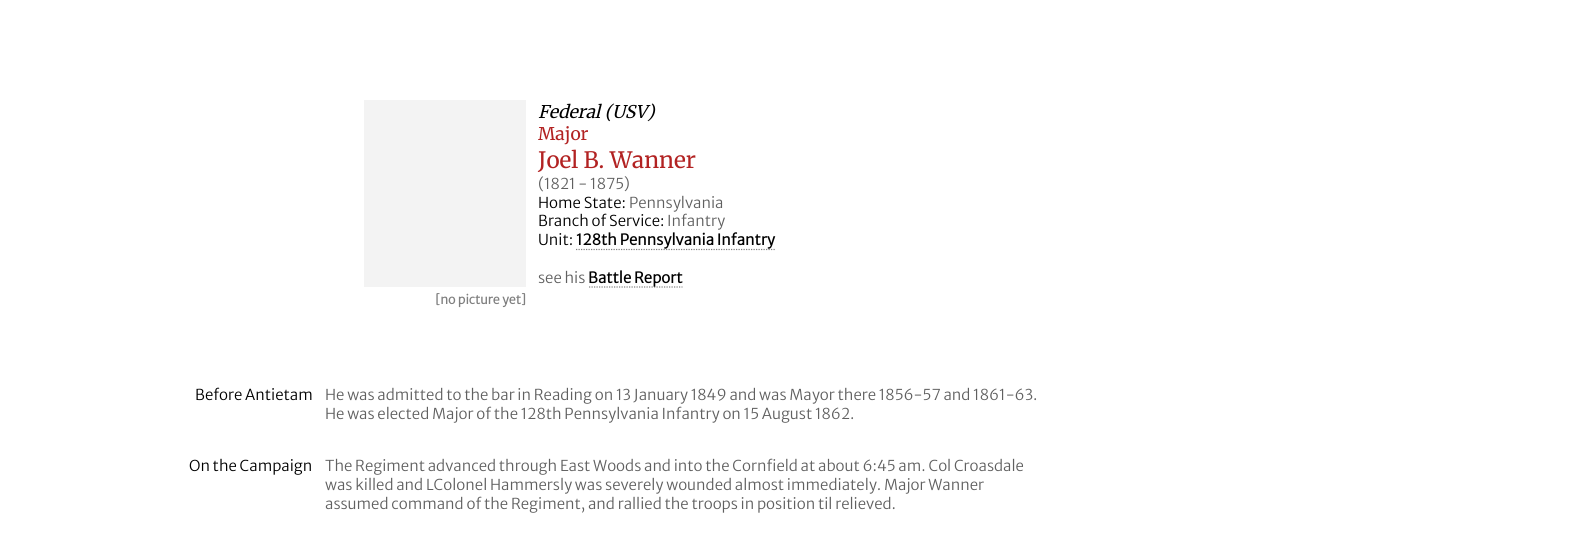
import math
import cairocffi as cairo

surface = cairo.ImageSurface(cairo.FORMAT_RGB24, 1582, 550)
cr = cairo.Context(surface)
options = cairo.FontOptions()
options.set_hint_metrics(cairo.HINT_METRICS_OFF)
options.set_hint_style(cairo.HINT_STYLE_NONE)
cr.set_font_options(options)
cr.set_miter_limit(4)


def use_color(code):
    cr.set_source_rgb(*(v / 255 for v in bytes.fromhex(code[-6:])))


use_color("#ffffff")
cr.paint()
cr.select_font_face("Merriweather Light", cairo.FONT_SLANT_ITALIC)
cr.set_font_size(17.5)
use_color("#000000")
cr.move_to(538, 118)
cr.show_text("Federal (USV)")
cr.select_font_face("Merriweather Light")
use_color("#b22222")
cr.move_to(538, 140)
cr.show_text("Major")
cr.set_font_size(22.5)
cr.move_to(538, 168)
cr.show_text("Joel B. Wanner")
cr.select_font_face("Merriweather Sans Light")
cr.set_font_size(15)
use_color("#606060")
cr.move_to(538, 189)
cr.show_text("(1821 - 1875)")
use_color("#000000")
cr.move_to(538, 208)
cr.show_text("Home State:")
use_color("#606060")
cr.move_to(629, 208)
cr.show_text("Pennsylvania")
use_color("#000000")
cr.move_to(538, 226)
cr.show_text("Branch of Service:")
use_color("#606060")
cr.move_to(667, 226)
cr.show_text("Infantry")
use_color("#000000")
cr.move_to(538, 245)
cr.show_text("Unit:")
cr.new_path()
cr.move_to(576, 249.5)
cr.line_to(775, 249.5)
use_color("#808080")
cr.set_line_width(1.2)
cr.set_dash([1.25, 1.25])
cr.stroke()
cr.select_font_face("Merriweather Sans", cairo.FONT_SLANT_NORMAL, cairo.FONT_WEIGHT_BOLD)
use_color("#000000")
cr.move_to(576, 245)
cr.show_text("128th Pennsylvania Infantry")
cr.select_font_face("Merriweather Sans Light")
use_color("#606060")
cr.move_to(538, 283)
cr.show_text("see his")
cr.new_path()
cr.move_to(589, 287)
cr.line_to(682.5, 287)
use_color("#808080")
cr.stroke()
cr.select_font_face("Merriweather Sans", cairo.FONT_SLANT_NORMAL, cairo.FONT_WEIGHT_BOLD)
use_color("#000000")
cr.move_to(588, 283)
cr.show_text("Battle Report")
use_color("#f3f3f3")
cr.rectangle(364, 100, 162, 187)
cr.fill()
cr.set_font_size(12.5)
use_color("#808080")
cr.move_to(435, 304)
cr.show_text("[no picture yet]")
cr.select_font_face("Merriweather Sans Light")
cr.set_font_size(15)
use_color("#000000")
cr.move_to(195, 400)
cr.show_text("Before Antietam")
use_color("#606060")
cr.move_to(325, 400)
cr.show_text("He was admitted to the bar in Reading on 13 January 1849 and was Mayor there 1856-57 and 1861-63.")
cr.move_to(325, 419)
cr.show_text("He was elected Major of the 128th Pennsylvania Infantry on 15 August 1862.")
use_color("#000000")
cr.move_to(189, 471)
cr.show_text("On the Campaign")
use_color("#606060")
cr.move_to(325, 471)
cr.show_text("The Regiment advanced through East Woods and into the Cornfield at about 6:45 am. Col Croasdale")
cr.move_to(325, 490)
cr.show_text("was killed and LColonel Hammersly was severely wounded almost immediately. Major Wanner")
cr.move_to(325, 509)
cr.show_text("assumed command of the Regiment, and rallied the troops in position til relieved.")
surface.write_to_png("result.png")
